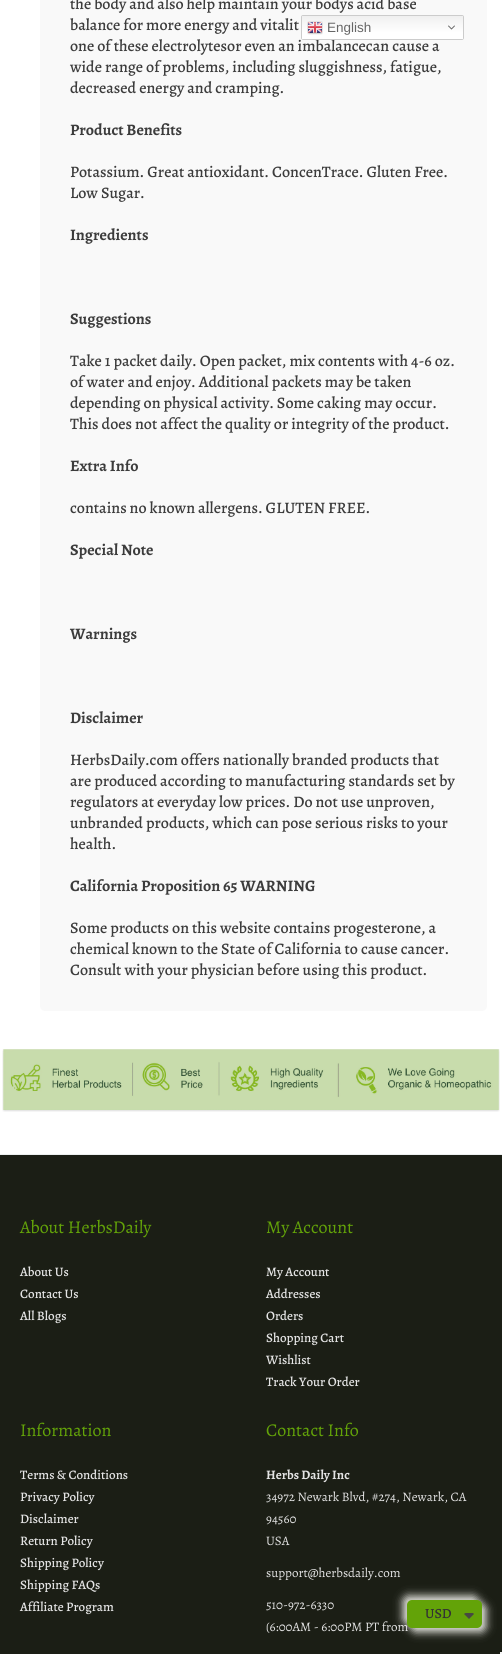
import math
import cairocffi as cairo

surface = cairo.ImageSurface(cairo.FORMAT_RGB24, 502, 1654)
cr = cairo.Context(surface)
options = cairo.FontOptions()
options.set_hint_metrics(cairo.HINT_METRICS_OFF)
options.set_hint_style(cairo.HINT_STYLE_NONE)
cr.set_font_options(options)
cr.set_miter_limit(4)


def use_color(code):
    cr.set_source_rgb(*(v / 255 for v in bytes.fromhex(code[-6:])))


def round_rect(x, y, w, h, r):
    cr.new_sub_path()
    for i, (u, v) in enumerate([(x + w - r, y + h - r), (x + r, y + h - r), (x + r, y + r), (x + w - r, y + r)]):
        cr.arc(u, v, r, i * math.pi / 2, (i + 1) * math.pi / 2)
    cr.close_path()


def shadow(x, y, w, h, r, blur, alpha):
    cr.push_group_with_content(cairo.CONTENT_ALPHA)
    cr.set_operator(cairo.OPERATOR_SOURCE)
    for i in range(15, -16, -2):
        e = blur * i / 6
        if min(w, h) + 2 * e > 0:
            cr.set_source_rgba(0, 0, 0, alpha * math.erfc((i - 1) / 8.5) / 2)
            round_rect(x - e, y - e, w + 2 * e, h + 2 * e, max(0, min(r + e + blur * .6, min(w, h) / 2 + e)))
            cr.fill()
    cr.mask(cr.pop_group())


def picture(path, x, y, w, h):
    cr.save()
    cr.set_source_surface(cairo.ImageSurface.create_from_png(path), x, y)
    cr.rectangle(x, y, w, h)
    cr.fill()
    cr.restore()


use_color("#ffffff")
cr.paint()
use_color("#f9f9f9")
round_rect(40, -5, 447, 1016, 5)
cr.fill()
cr.select_font_face("Alegreya Medium")
cr.set_font_size(16)
use_color("#3c3c3c")
cr.move_to(70, 9)
cr.show_text("the body and also help maintain your bodys acid base")
cr.move_to(70, 30)
cr.show_text("balance for more energy and vitalit")
cr.move_to(70, 51)
cr.show_text("one of these electrolytesor even an imbalancecan cause a")
cr.move_to(70, 72)
cr.show_text("wide range of problems, including sluggishness, fatigue,")
cr.move_to(70, 93)
cr.show_text("decreased energy and cramping.")
cr.select_font_face("Alegreya", cairo.FONT_SLANT_NORMAL, cairo.FONT_WEIGHT_BOLD)
cr.move_to(70, 135)
cr.show_text("Product Benefits")
cr.select_font_face("Alegreya Medium")
cr.move_to(70, 177)
cr.show_text("Potassium. Great antioxidant. ConcenTrace. Gluten Free.")
cr.move_to(70, 198)
cr.show_text("Low Sugar.")
cr.select_font_face("Alegreya", cairo.FONT_SLANT_NORMAL, cairo.FONT_WEIGHT_BOLD)
cr.move_to(70, 240)
cr.show_text("Ingredients")
cr.move_to(70, 324)
cr.show_text("Suggestions")
cr.select_font_face("Alegreya Medium")
cr.move_to(70, 366)
cr.show_text("Take 1 packet daily. Open packet, mix contents with 4-6 oz.")
cr.move_to(70, 387)
cr.show_text("of water and enjoy. Additional packets may be taken")
cr.move_to(70, 408)
cr.show_text("depending on physical activity. Some caking may occur.")
cr.move_to(70, 429)
cr.show_text("This does not affect the quality or integrity of the product.")
cr.select_font_face("Alegreya", cairo.FONT_SLANT_NORMAL, cairo.FONT_WEIGHT_BOLD)
cr.move_to(70, 471)
cr.show_text("Extra Info")
cr.select_font_face("Alegreya Medium")
cr.move_to(70, 513)
cr.show_text("contains no known allergens. GLUTEN FREE.")
cr.select_font_face("Alegreya", cairo.FONT_SLANT_NORMAL, cairo.FONT_WEIGHT_BOLD)
cr.move_to(70, 555)
cr.show_text("Special Note")
cr.move_to(70, 639)
cr.show_text("Warnings")
cr.move_to(70, 723)
cr.show_text("Disclaimer")
cr.select_font_face("Alegreya Medium")
cr.move_to(70, 765)
cr.show_text("HerbsDaily.com offers nationally branded products that")
cr.move_to(70, 786)
cr.show_text("are produced according to manufacturing standards set by")
cr.move_to(70, 807)
cr.show_text("regulators at everyday low prices. Do not use unproven,")
cr.move_to(70, 828)
cr.show_text("unbranded products, which can pose serious risks to your")
cr.move_to(70, 849)
cr.show_text("health.")
cr.select_font_face("Alegreya", cairo.FONT_SLANT_NORMAL, cairo.FONT_WEIGHT_BOLD)
cr.move_to(70, 891)
cr.show_text("California Proposition 65 WARNING")
cr.select_font_face("Alegreya Medium")
cr.move_to(70, 933)
cr.show_text("Some products on this website contains progesterone, a")
cr.move_to(70, 954)
cr.show_text("chemical known to the State of California to cause cancer.")
cr.move_to(70, 975)
cr.show_text("Consult with your physician before using this product.")
picture("img1.png", 2, 1049, 498, 63)
gradient = cairo.LinearGradient(383, 15, 383, 40)
gradient.add_color_stop_rgba(0, 0.937, 0.937, 0.937, 1)
gradient.add_color_stop_rgba(0.7, 1, 1, 1, 1)
cr.set_source(gradient)
round_rect(301, 15, 163, 25, 2)
cr.fill()
use_color("#cccccc")
cr.set_fill_rule(cairo.FILL_RULE_EVEN_ODD)
cr.new_path()
cr.move_to(303, 15)
cr.curve_to(302, 15, 301, 16, 301, 17)
cr.line_to(301, 38)
cr.curve_to(301, 39, 302, 40, 303, 40)
cr.line_to(462, 40)
cr.curve_to(463, 40, 464, 39, 464, 38)
cr.line_to(464, 17)
cr.curve_to(464, 16, 463, 15, 462, 15)
cr.close_path()
cr.move_to(302, 16)
cr.line_to(302, 39)
cr.line_to(463, 39)
cr.line_to(463, 16)
cr.close_path()
cr.fill()
picture("img2.png", 307, 21, 16, 14)
cr.select_font_face("Liberation Sans")
cr.set_font_size(13.5)
use_color("#666666")
cr.move_to(327, 32)
cr.show_text("English")
picture("img3.png", 448, 25, 7, 5)
use_color("#1b1e15")
cr.rectangle(0, 1155, 502, 499)
cr.fill()
use_color("#ecefef")
cr.rectangle(0, 1154, 502, 1)
cr.fill()
cr.select_font_face("Alegreya")
cr.set_font_size(18)
use_color("#63a308")
cr.move_to(20, 1233)
cr.show_text("About HerbsDaily")
cr.select_font_face("Alegreya Medium")
cr.set_font_size(13)
use_color("#e4e4e4")
cr.move_to(20, 1276)
cr.show_text("About Us")
cr.move_to(20, 1298)
cr.show_text("Contact Us")
cr.move_to(20, 1320)
cr.show_text("All Blogs")
cr.select_font_face("Alegreya")
cr.set_font_size(18)
use_color("#63a308")
cr.move_to(266, 1233)
cr.show_text("My Account")
cr.select_font_face("Alegreya Medium")
cr.set_font_size(13)
use_color("#e4e4e4")
cr.move_to(266, 1276)
cr.show_text("My Account")
cr.move_to(266, 1298)
cr.show_text("Addresses")
cr.move_to(266, 1320)
cr.show_text("Orders")
cr.move_to(266, 1342)
cr.show_text("Shopping Cart")
cr.move_to(266, 1364)
cr.show_text("Wishlist")
cr.move_to(266, 1386)
cr.show_text("Track Your Order")
cr.select_font_face("Alegreya")
cr.set_font_size(18)
use_color("#63a308")
cr.move_to(20, 1436)
cr.show_text("Information")
cr.select_font_face("Alegreya Medium")
cr.set_font_size(13)
use_color("#e4e4e4")
cr.move_to(20, 1479)
cr.show_text("Terms & Conditions")
cr.move_to(20, 1501)
cr.show_text("Privacy Policy")
cr.move_to(20, 1523)
cr.show_text("Disclaimer")
cr.move_to(20, 1545)
cr.show_text("Return Policy")
cr.move_to(20, 1567)
cr.show_text("Shipping Policy")
cr.move_to(20, 1589)
cr.show_text("Shipping FAQs")
cr.move_to(20, 1611)
cr.show_text("Affiliate Program")
cr.select_font_face("Alegreya")
cr.set_font_size(18)
use_color("#63a308")
cr.move_to(266, 1436)
cr.show_text("Contact Info")
cr.select_font_face("Alegreya", cairo.FONT_SLANT_NORMAL, cairo.FONT_WEIGHT_BOLD)
cr.set_font_size(13)
use_color("#e4e4e4")
cr.move_to(266, 1479)
cr.show_text("Herbs Daily Inc")
cr.select_font_face("Alegreya")
cr.move_to(266, 1501)
cr.show_text("34972 Newark Blvd, #274, Newark, CA")
cr.move_to(266, 1523)
cr.show_text("94560")
cr.move_to(266, 1545)
cr.show_text("USA")
cr.move_to(266, 1577)
cr.show_text("support@herbsdaily.com")
cr.move_to(266, 1609)
cr.show_text("510-972-6330")
cr.move_to(266, 1631)
cr.show_text("(6:00AM - 6:00PM PT from")
use_color("#e8e8e2")
shadow(403, 1596, 75, 28, 5, 4.5, 1)
shadow(411, 1604, 75, 28, 5, 4.5, 1)
use_color("#63a308")
round_rect(407, 1600, 75, 28, 5)
cr.fill()
cr.select_font_face("Alegreya Medium")
cr.set_font_size(14)
use_color("#333333")
cr.move_to(425, 1618)
cr.show_text("USD")
use_color("#474942")
cr.set_fill_rule(cairo.FILL_RULE_WINDING)
cr.new_path()
cr.move_to(466, 1613)
cr.curve_to(465, 1613, 464.5, 1613.5, 464, 1614)
cr.line_to(469, 1619)
cr.line_to(474, 1614)
cr.line_to(473, 1613)
cr.close_path()
cr.fill()
use_color("#f5f5f5")
cr.rectangle(500, 1652, 2, 2)
cr.fill()
surface.write_to_png("result.png")
